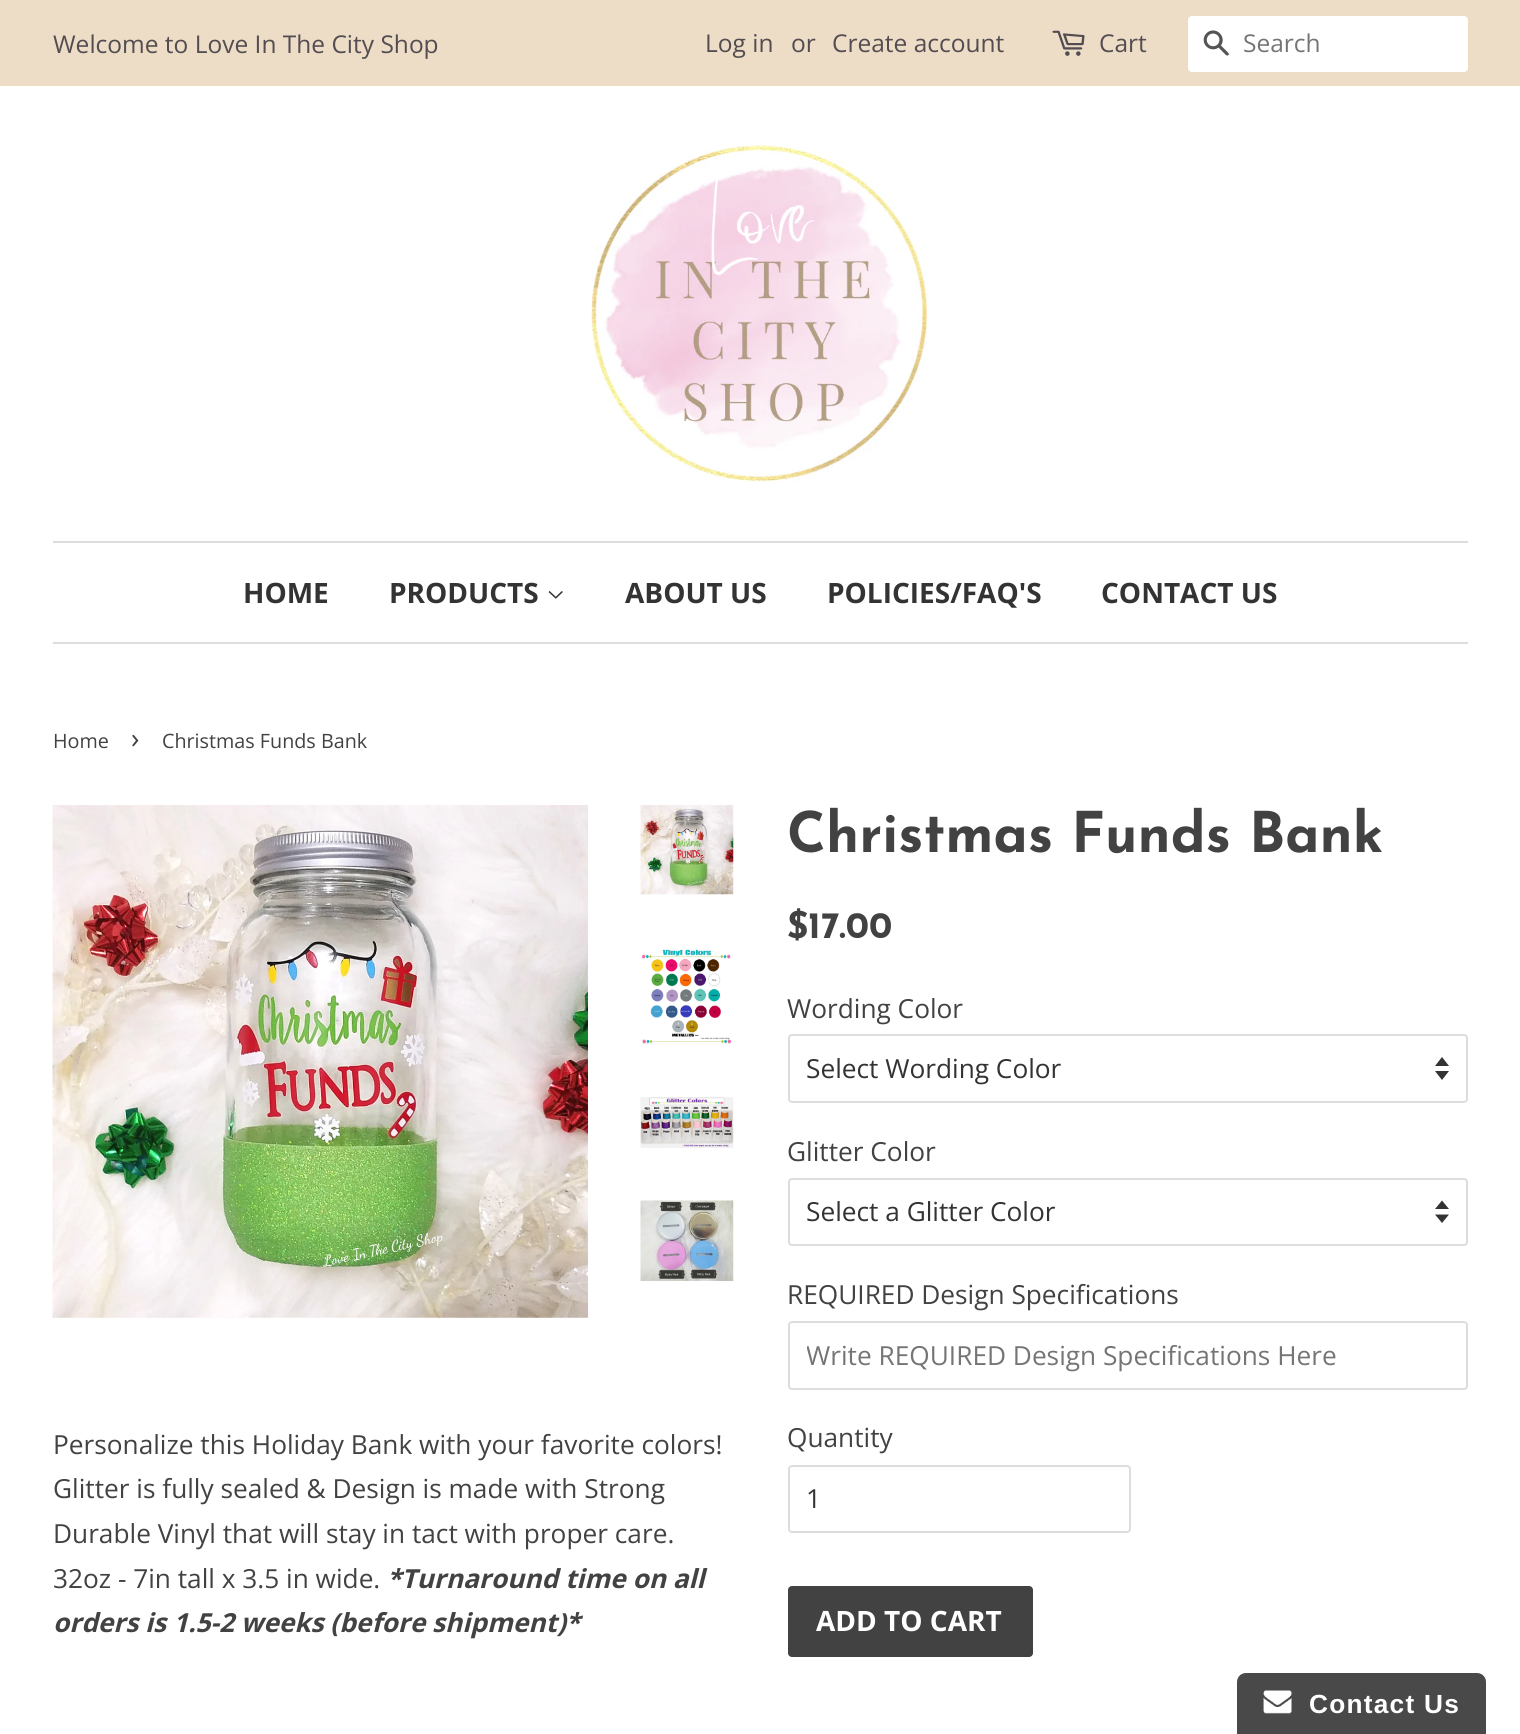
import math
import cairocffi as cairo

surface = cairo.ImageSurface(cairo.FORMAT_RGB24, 1520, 1734)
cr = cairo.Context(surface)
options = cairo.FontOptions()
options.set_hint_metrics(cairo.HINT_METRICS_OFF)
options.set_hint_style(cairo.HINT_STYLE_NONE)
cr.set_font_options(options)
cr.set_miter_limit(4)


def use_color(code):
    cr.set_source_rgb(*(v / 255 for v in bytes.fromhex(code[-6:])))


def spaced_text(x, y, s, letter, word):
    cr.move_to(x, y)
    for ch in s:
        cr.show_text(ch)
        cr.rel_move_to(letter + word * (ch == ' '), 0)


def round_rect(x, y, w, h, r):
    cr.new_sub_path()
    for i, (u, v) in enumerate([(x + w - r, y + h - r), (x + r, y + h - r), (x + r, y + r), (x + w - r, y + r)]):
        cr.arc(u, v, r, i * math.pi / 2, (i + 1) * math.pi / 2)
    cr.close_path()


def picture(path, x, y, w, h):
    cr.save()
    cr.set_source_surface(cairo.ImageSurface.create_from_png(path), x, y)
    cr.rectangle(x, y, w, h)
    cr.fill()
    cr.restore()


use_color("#ffffff")
cr.paint()
use_color("#edddc7")
cr.rectangle(0, 0, 1520, 86)
cr.fill()
cr.select_font_face("Open Sans")
cr.set_font_size(24.5)
use_color("#534d51")
cr.move_to(53, 53)
cr.show_text("Welcome to Love In The City Shop")
cr.move_to(705, 52)
cr.show_text("Log in")
cr.move_to(791, 52)
cr.show_text("or")
cr.move_to(832, 52)
cr.show_text("Create account")
picture("img1.png", 1052, 30, 33, 26)
cr.move_to(1099, 52)
cr.show_text("Cart")
use_color("#ffffff")
round_rect(1188, 16, 280, 56, 4)
cr.fill()
picture("img2.png", 1203, 30, 26, 26)
use_color("#757575")
cr.move_to(1243, 52)
cr.show_text("Search")
picture("img3.png", 591, 145, 337, 339)
use_color("#dddddd")
cr.rectangle(53, 541, 1415, 2)
cr.fill()
cr.rectangle(53, 642, 1415, 2)
cr.fill()
cr.select_font_face("Open Sans", cairo.FONT_SLANT_NORMAL, cairo.FONT_WEIGHT_BOLD)
cr.set_font_size(28)
use_color("#333333")
cr.move_to(243, 603)
cr.show_text("HOME")
cr.move_to(389, 603)
cr.show_text("PRODUCTS")
picture("img4.png", 548, 591, 15, 8)
cr.move_to(625, 603)
cr.show_text("ABOUT US")
cr.move_to(827, 603)
cr.show_text("POLICIES/FAQ'S")
cr.move_to(1101, 603)
cr.show_text("CONTACT US")
cr.select_font_face("Open Sans")
cr.set_font_size(19.75)
use_color("#434243")
cr.move_to(53, 748)
cr.show_text("Home")
cr.set_font_size(28)
cr.move_to(131, 748)
cr.show_text("›")
cr.set_font_size(19.75)
cr.move_to(162, 748)
cr.show_text("Christmas Funds Bank")
picture("img5.png", 52, 805, 536, 513)
picture("img6.png", 640, 805, 94, 90)
picture("img7.png", 641, 949, 91, 95)
picture("img8.png", 640, 1097, 94, 51)
picture("img9.png", 640, 1200, 94, 81)
cr.set_font_size(26.25)
cr.move_to(53, 1454)
cr.show_text("Personalize this Holiday Bank with your favorite colors!")
cr.move_to(53, 1498)
cr.show_text("Glitter is fully sealed & Design is made with Strong")
cr.move_to(53, 1543)
cr.show_text("Durable Vinyl that will stay in tact with proper care.")
cr.move_to(53, 1588)
cr.show_text("32oz - 7in tall x 3.5 in wide.")
cr.select_font_face("Open Sans", cairo.FONT_SLANT_ITALIC, cairo.FONT_WEIGHT_BOLD)
cr.move_to(387, 1588)
cr.show_text("*Turnaround time on all")
cr.move_to(53, 1632)
cr.show_text("orders is 1.5-2 weeks (before shipment)*")
cr.select_font_face("Josefin Sans Thin")
cr.set_font_size(56)
cr.move_to(787, 852)
cr.show_text("Christmas Funds Bank")
cr.set_font_size(37)
cr.move_to(787, 938)
cr.show_text("$17.00")
cr.select_font_face("Open Sans")
cr.set_font_size(26.25)
cr.move_to(787, 1018)
cr.show_text("Wording Color")
use_color("#333333")
cr.new_path()
cr.move_to(1435, 1071)
cr.line_to(1442, 1080)
cr.line_to(1449, 1071)
cr.close_path()
cr.move_to(1442, 1057)
cr.line_to(1435, 1066)
cr.line_to(1449, 1066)
cr.close_path()
cr.fill()
round_rect(789, 1035, 678, 67, 3)
use_color("#dddddd")
cr.stroke()
use_color("#333333")
cr.move_to(806, 1078)
cr.show_text("Select Wording Color")
use_color("#434243")
cr.move_to(787, 1161)
cr.show_text("Glitter Color")
use_color("#333333")
cr.new_path()
cr.move_to(1435, 1214.5)
cr.line_to(1442, 1223)
cr.line_to(1449, 1214.5)
cr.close_path()
cr.move_to(1442, 1200.5)
cr.line_to(1435, 1209)
cr.line_to(1449, 1209)
cr.close_path()
cr.fill()
round_rect(789, 1179, 678, 66, 3)
use_color("#dddddd")
cr.stroke()
use_color("#333333")
cr.move_to(806, 1221)
cr.show_text("Select a Glitter Color")
use_color("#434243")
cr.move_to(787, 1304)
cr.show_text("REQUIRED Design Specifications")
round_rect(789, 1322, 678, 67, 3)
use_color("#dddddd")
cr.stroke()
cr.save()
cr.rectangle(807, 1337, 642, 35)
cr.clip()
use_color("#757575")
cr.move_to(806, 1365)
cr.show_text("Write REQUIRED Design Specifications Here")
cr.restore()
use_color("#434243")
cr.move_to(787, 1447)
cr.show_text("Quantity")
round_rect(789, 1466, 341, 66, 3)
use_color("#dddddd")
cr.stroke()
use_color("#333333")
cr.move_to(806, 1508)
cr.show_text("1")
use_color("#434243")
round_rect(788, 1586, 245, 71, 4)
cr.fill()
cr.select_font_face("Open Sans", cairo.FONT_SLANT_NORMAL, cairo.FONT_WEIGHT_BOLD)
cr.set_font_size(28)
use_color("#ffffff")
cr.move_to(816, 1631)
cr.show_text("ADD TO CART")
use_color("#494949")
cr.new_path()
cr.move_to(1246, 1673)
cr.line_to(1477, 1673)
cr.curve_to(1482, 1673, 1486, 1677, 1486, 1682)
cr.line_to(1486, 1734)
cr.line_to(1237, 1734)
cr.line_to(1237, 1682)
cr.curve_to(1237, 1677, 1241, 1673, 1246, 1673)
cr.close_path()
cr.fill()
picture("img10.png", 1263, 1690, 29, 24)
cr.select_font_face("Liberation Sans", cairo.FONT_SLANT_NORMAL, cairo.FONT_WEIGHT_BOLD)
cr.set_font_size(26.25)
use_color("#ffffff")
spaced_text(1309, 1713, "Contact Us", 1.25, 0)
surface.write_to_png("result.png")
